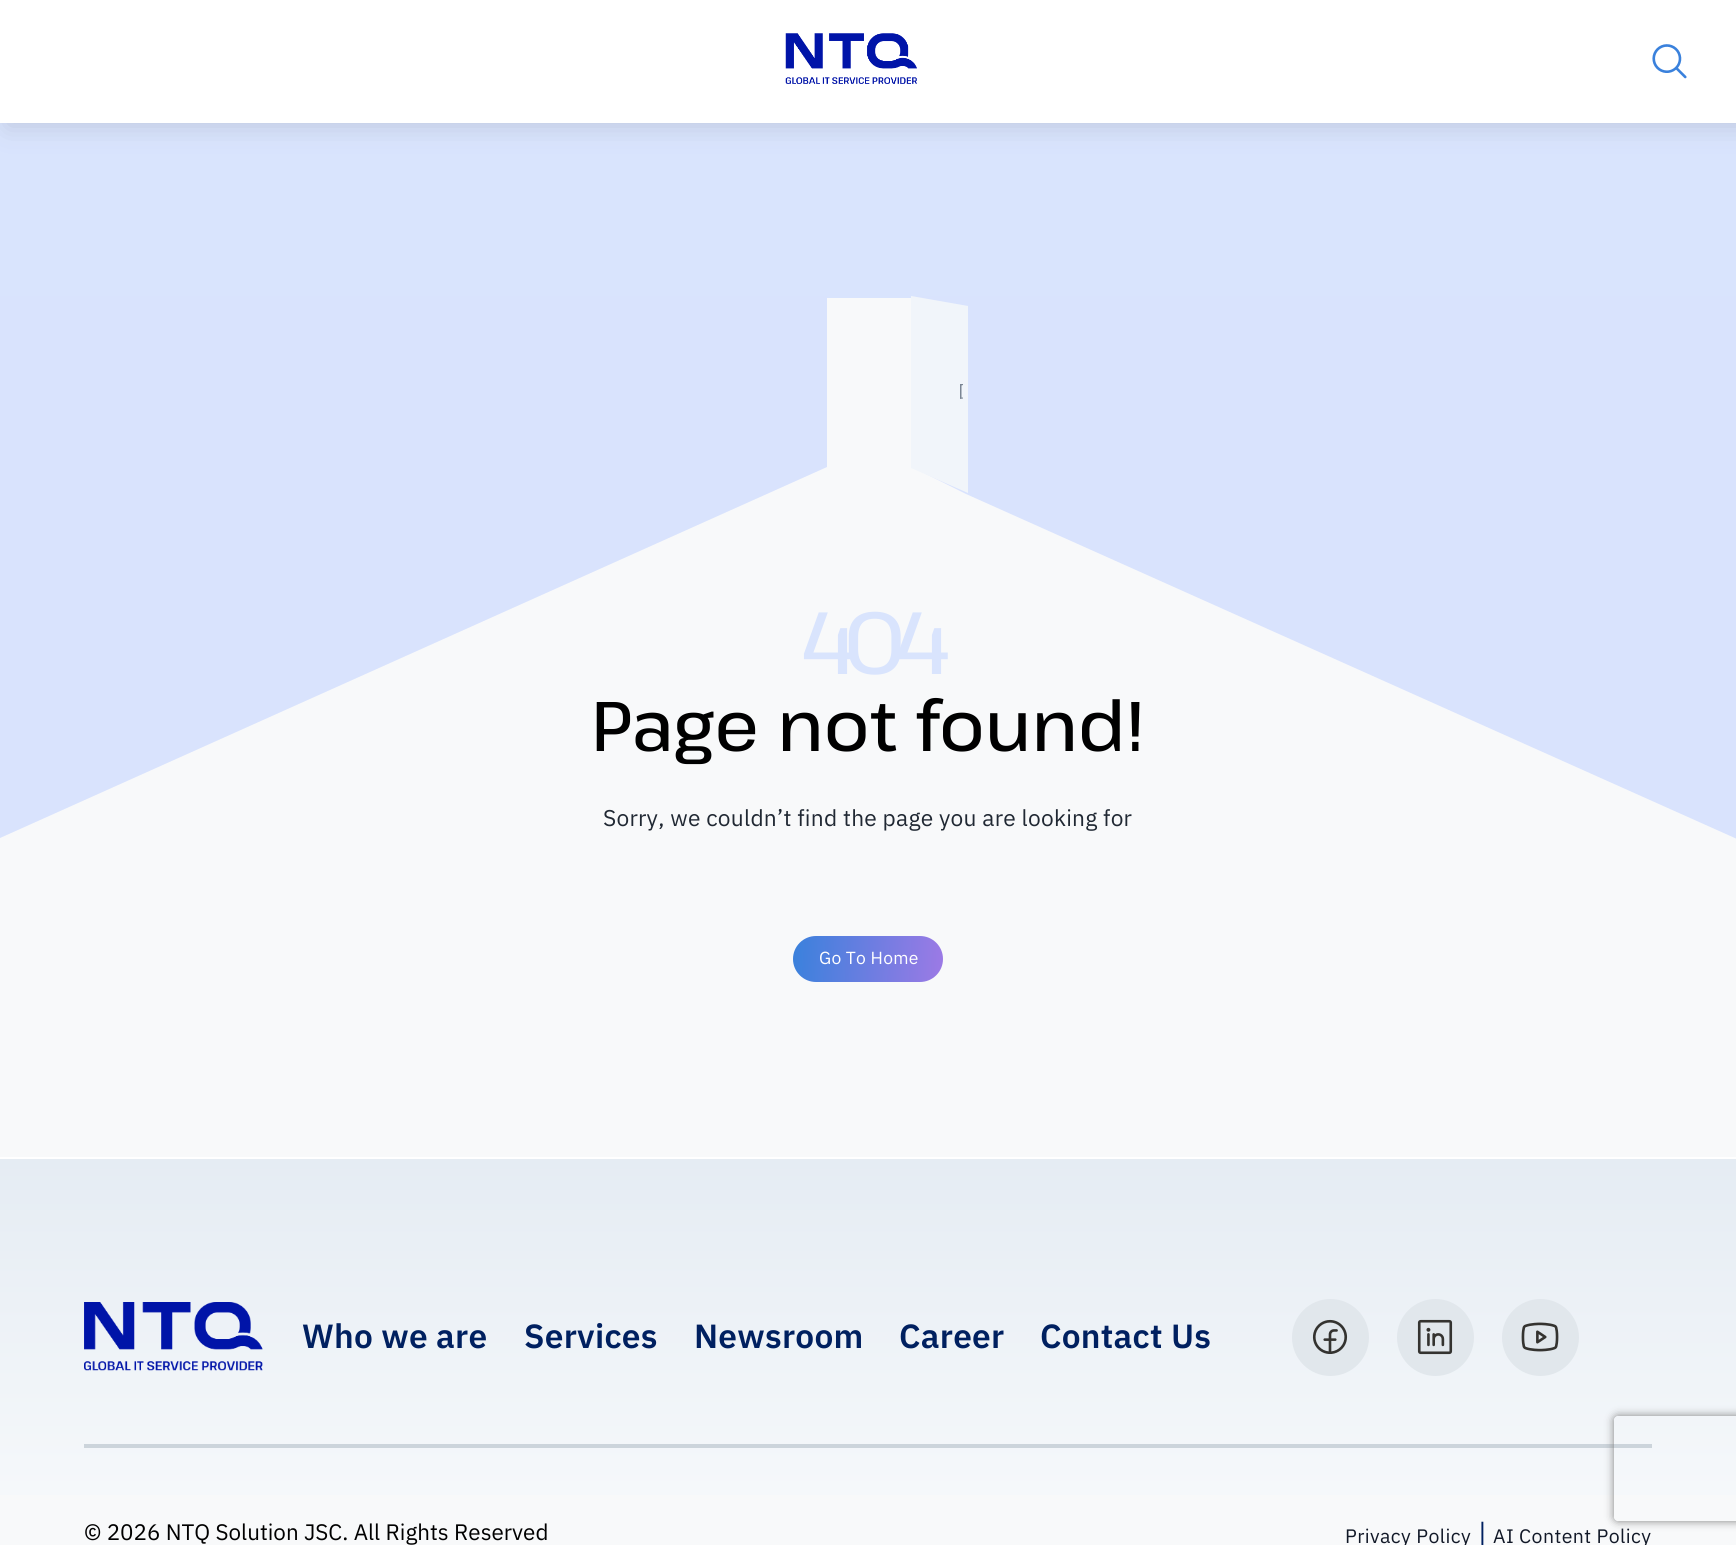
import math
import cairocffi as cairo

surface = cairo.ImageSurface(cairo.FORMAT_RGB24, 1736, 1545)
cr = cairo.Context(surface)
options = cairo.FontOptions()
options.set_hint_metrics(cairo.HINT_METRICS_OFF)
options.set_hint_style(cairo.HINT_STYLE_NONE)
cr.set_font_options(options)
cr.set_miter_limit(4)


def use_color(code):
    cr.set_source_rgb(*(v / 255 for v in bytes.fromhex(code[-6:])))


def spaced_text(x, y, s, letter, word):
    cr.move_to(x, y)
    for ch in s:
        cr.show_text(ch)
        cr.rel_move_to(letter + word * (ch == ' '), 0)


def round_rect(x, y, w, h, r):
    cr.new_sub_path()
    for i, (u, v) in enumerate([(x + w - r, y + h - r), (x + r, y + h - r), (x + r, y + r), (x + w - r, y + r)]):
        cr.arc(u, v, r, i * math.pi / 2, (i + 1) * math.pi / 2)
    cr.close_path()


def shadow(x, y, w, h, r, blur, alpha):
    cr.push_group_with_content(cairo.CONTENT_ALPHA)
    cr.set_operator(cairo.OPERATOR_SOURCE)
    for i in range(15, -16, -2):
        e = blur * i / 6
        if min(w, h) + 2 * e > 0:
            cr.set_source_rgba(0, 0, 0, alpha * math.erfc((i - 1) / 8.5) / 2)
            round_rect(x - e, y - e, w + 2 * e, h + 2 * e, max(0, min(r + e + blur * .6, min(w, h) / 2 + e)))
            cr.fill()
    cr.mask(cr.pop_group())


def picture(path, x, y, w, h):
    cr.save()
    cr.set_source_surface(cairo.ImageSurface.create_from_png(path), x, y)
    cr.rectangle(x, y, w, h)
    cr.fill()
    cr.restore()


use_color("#f8f9fa")
cr.paint()
use_color("#d9e4fd")
cr.rectangle(0, 123, 1736, 175)
cr.fill()
use_color("#6b7280")
shadow(7, -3, 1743, 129, 0, 13, 0.25)
use_color("#ffffff")
cr.rectangle(0, 0, 1736, 123)
cr.fill()
picture("img1.png", 785, 33, 132, 51)
picture("img2.png", 1652, 44, 35, 35)
cr.select_font_face("Pathway Extreme Medium")
cr.set_font_size(88)
use_color("#d9e4fd")
spaced_text(800, 674, "404", -12.5, 0)
cr.set_font_size(70)
use_color("#000000")
cr.move_to(591, 751)
cr.show_text("Page not found!")
cr.select_font_face("IBM Plex Sans")
cr.set_font_size(22.75)
use_color("#202833")
spaced_text(603, 826, "Sorry, we couldn’t find the page you are looking for", 0.23, 0)
use_color("#d9e3fd")
cr.new_path()
cr.move_to(0, 296)
cr.line_to(0, 838)
cr.line_to(827, 467)
cr.line_to(827, 296)
cr.close_path()
cr.move_to(911, 296)
cr.line_to(912, 467)
cr.line_to(966, 494)
cr.line_to(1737, 839)
cr.line_to(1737, 296)
cr.close_path()
cr.fill()
use_color("#f1f5fa")
cr.new_path()
cr.move_to(911, 296)
cr.line_to(911, 468)
cr.line_to(968, 493)
cr.line_to(968, 306)
cr.close_path()
cr.fill()
use_color("#7b8694")
cr.new_path()
cr.move_to(960, 384)
cr.line_to(963, 384)
cr.line_to(963, 385)
cr.line_to(961.5, 385.5)
cr.line_to(961.5, 397.5)
cr.line_to(963, 397.5)
cr.line_to(963, 398.5)
cr.line_to(960, 399)
cr.close_path()
cr.fill()
gradient = cairo.LinearGradient(792, 954, 944, 964)
gradient.add_color_stop_rgba(0, 0.227, 0.506, 0.863, 1)
gradient.add_color_stop_rgba(1, 0.612, 0.478, 0.898, 1)
cr.set_source(gradient)
round_rect(793, 936, 150, 46, 23)
cr.fill()
cr.set_font_size(17.5)
use_color("#ffffff")
spaced_text(819, 964, "Go To Home", 0.25, 0)
gradient = cairo.LinearGradient(868, 1159, 868, 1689)
gradient.add_color_stop_rgba(0, 0.898, 0.925, 0.953, 1)
gradient.add_color_stop_rgba(1, 1, 1, 1, 1)
cr.set_source(gradient)
cr.rectangle(0, 1159, 1736, 336)
cr.fill()
use_color("#ffffff")
cr.rectangle(0, 1157, 1736, 2)
cr.fill()
picture("img3.png", 84, 1302, 179, 69)
cr.select_font_face("IBM Plex Sans SemiBold")
cr.set_font_size(33.5)
use_color("#002060")
spaced_text(302, 1348, "Who we are", 0.25, 0)
spaced_text(524, 1348, "Services", 0.25, 0)
spaced_text(694, 1348, "Newsroom", 0.25, 0)
spaced_text(899, 1348, "Career", 0.25, 0)
spaced_text(1040, 1348, "Contact Us", 0.25, 0)
use_color("#e1e7ec")
cr.new_path()
cr.arc(1330.5, 1337.5, 38.5, 0, 2 * math.pi)
cr.fill()
picture("img4.png", 1312, 1319, 36, 35)
cr.arc(1435.5, 1337.5, 38.5, 0, 2 * math.pi)
cr.fill()
picture("img5.png", 1417, 1319, 36, 36)
cr.arc(1540.5, 1337.5, 38.5, 0, 2 * math.pi)
cr.fill()
picture("img6.png", 1521, 1322, 38, 30)
use_color("#ccd4db")
cr.rectangle(84, 1444, 1568, 4)
cr.fill()
cr.select_font_face("IBM Plex Sans")
cr.set_font_size(22.4)
use_color("#000000")
cr.move_to(84, 1540)
cr.show_text("© 2026 NTQ Solution JSC. All Rights Reserved")
cr.set_font_size(19.5)
use_color("#111827")
spaced_text(1345, 1543, "Privacy Policy", 0.4, 0)
cr.set_font_size(28)
use_color("#002060")
cr.move_to(1478, 1543)
cr.show_text("|")
cr.set_font_size(19.5)
use_color("#111827")
spaced_text(1493, 1543, "AI Content Policy", 0.4, 0)
cr.save()
cr.set_fill_rule(cairo.FILL_RULE_EVEN_ODD)
cr.new_path()
cr.move_to(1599, 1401)
cr.line_to(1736, 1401)
cr.line_to(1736, 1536)
cr.line_to(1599, 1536)
cr.close_path()
cr.move_to(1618, 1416)
cr.line_to(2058, 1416)
cr.curve_to(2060, 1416, 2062, 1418, 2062, 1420)
cr.line_to(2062, 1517)
cr.curve_to(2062, 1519, 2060, 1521, 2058, 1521)
cr.line_to(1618, 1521)
cr.curve_to(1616, 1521, 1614, 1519, 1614, 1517)
cr.line_to(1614, 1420)
cr.curve_to(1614, 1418, 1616, 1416, 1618, 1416)
cr.close_path()
cr.clip()
use_color("#808080")
shadow(1614, 1416, 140, 105, 4, 4.5, 1)
cr.restore()
surface.write_to_png("result.png")
